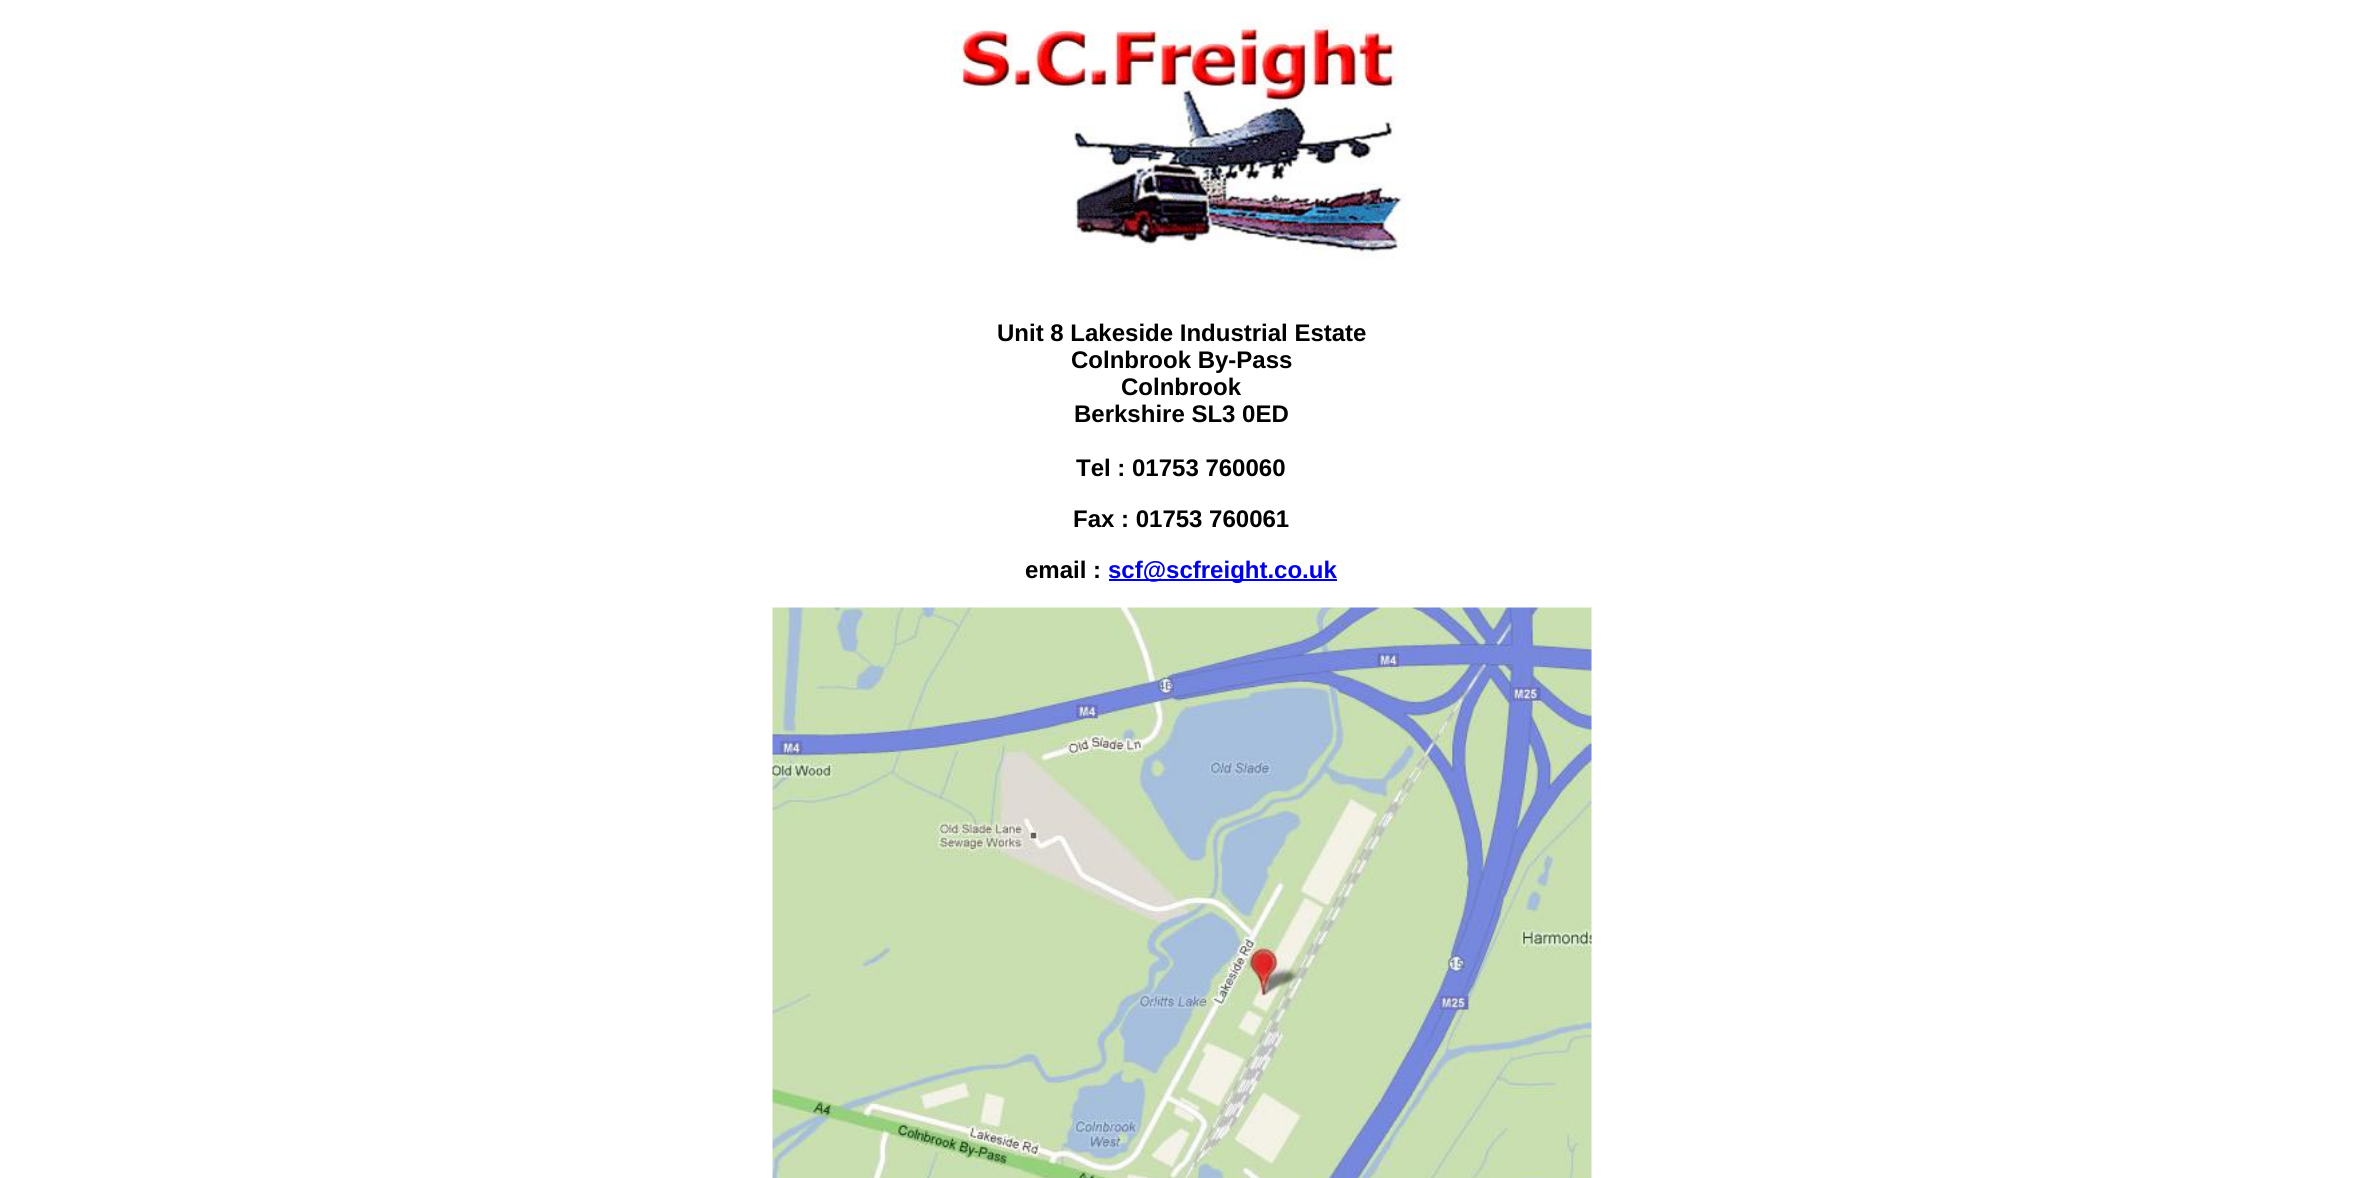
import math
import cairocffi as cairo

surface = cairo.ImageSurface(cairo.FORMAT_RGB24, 2362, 1178)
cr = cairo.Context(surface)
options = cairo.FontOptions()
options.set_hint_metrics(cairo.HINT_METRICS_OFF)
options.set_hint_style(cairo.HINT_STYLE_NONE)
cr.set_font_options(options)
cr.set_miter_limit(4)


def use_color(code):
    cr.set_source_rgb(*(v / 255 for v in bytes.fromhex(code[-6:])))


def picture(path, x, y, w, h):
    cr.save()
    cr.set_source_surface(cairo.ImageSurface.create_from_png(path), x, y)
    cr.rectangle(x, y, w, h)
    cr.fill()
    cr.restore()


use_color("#ffffff")
cr.paint()
picture("img1.png", 950, 16, 456, 243)
cr.select_font_face("Liberation Sans", cairo.FONT_SLANT_NORMAL, cairo.FONT_WEIGHT_BOLD)
cr.set_font_size(24)
use_color("#000000")
cr.move_to(997, 341)
cr.show_text("Unit 8 Lakeside Industrial Estate")
cr.move_to(1071, 368)
cr.show_text("Colnbrook By-Pass")
cr.move_to(1121, 395)
cr.show_text("Colnbrook")
cr.move_to(1074, 422)
cr.show_text("Berkshire SL3 0ED")
cr.move_to(1076, 476)
cr.show_text("Tel : 01753 760060")
cr.move_to(1073, 527)
cr.show_text("Fax : 01753 760061")
cr.move_to(1025, 578)
cr.show_text("email :")
use_color("#0000ee")
cr.rectangle(1109, 579, 228, 2)
cr.fill()
cr.move_to(1108, 578)
cr.show_text("scf@scfreight.co.uk")
picture("img2.png", 772, 607, 820, 571)
surface.write_to_png("result.png")
